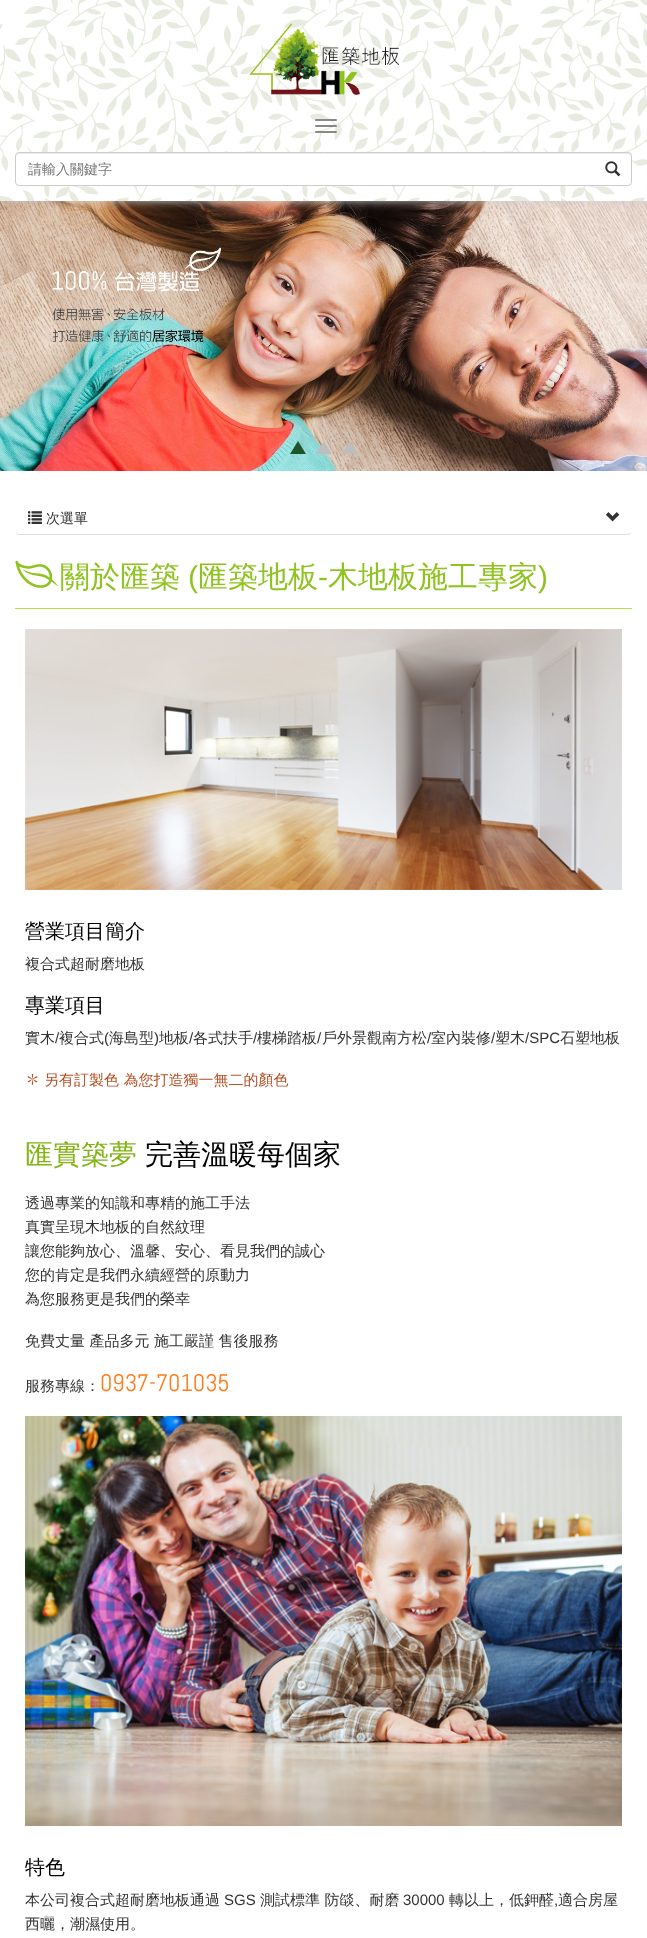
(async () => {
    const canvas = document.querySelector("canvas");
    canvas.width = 647;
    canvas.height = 1938;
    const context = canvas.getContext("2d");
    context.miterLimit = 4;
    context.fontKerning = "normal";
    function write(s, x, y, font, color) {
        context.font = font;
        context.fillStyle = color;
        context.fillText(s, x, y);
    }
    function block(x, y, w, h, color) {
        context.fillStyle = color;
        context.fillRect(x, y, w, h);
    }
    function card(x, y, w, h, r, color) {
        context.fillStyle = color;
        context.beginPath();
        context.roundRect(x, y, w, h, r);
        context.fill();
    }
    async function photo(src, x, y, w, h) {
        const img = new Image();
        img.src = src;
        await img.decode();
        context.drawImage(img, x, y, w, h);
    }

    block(0, 0, 647, 1938, "rgb(255, 255, 255)");
    await photo("media/4.png", 0, 201, 647, 270);
    context.fillStyle = "rgb(208, 208, 208)";
    context.filter = "blur(5px)";
    context.beginPath();
    context.rect(0, 0, 647, 201);
    context.fill();
    context.filter = "none";
    await photo("media/1.png", 0, 0, 647, 201);
    await photo("media/2.png", 249, 23, 150, 72);
    card(315, 119, 22, 2, 1, "rgb(136, 136, 136)");
    card(315, 125, 22, 2, 1, "rgb(136, 136, 136)");
    card(315, 131, 22, 2, 1, "rgb(136, 136, 136)");
    card(15, 152, 617, 34, 4, "rgb(255, 255, 255)");
    context.fillStyle = "rgb(236, 236, 236)";
    context.beginPath();
    context.moveTo(19, 154);
    context.lineTo(628, 154);
    context.bezierCurveTo(630, 154, 631, 155, 631, 157);
    context.lineTo(631, 156);
    context.bezierCurveTo(631, 154, 630, 153, 628, 153);
    context.lineTo(19, 153);
    context.bezierCurveTo(17, 153, 16, 154, 16, 156);
    context.lineTo(16, 157);
    context.bezierCurveTo(16, 155, 17, 154, 19, 154);
    context.closePath();
    context.fill();
    context.beginPath();
    context.roundRect(15.5, 152.5, 616, 33, 3.5);
    context.strokeStyle = "rgb(204, 204, 204)";
    context.stroke();
    write("請輸入關鍵字", 28, 174, "500 14px WenQuanYi Zen Hei", "rgb(119, 119, 119)");
    await photo("media/3.png", 605, 161, 16, 16);
    await photo("media/5.png", 290, 441, 16, 13);
    await photo("media/6.png", 316, 441, 16, 13);
    await photo("media/7.png", 342, 441, 16, 13);
    context.beginPath();
    context.moveTo(630.5, 533.5);
    context.lineTo(628, 534.5);
    context.lineTo(19, 534.5);
    context.lineTo(16.5, 533.5);
    context.strokeStyle = "rgb(221, 221, 221)";
    context.stroke();
    await photo("media/8.png", 28, 511, 14, 13);
    write("次選單", 46, 523, "500 14px WenQuanYi Zen Hei", "rgb(51, 51, 51)");
    await photo("media/9.png", 605, 512, 15, 10);
    await photo("media/10.png", 15, 560, 43, 28);
    block(15, 608, 617, 1, "rgb(178, 228, 72)");
    write("關於匯築", 60, 587, "500 30px WenQuanYi Zen Hei", "rgb(143, 195, 32)");
    write("(", 188, 587, "30px Liberation Sans", "rgb(143, 195, 32)");
    write("匯築地板", 198, 587, "500 30px WenQuanYi Zen Hei", "rgb(143, 195, 32)");
    write("-", 318, 587, "30px Liberation Sans", "rgb(143, 195, 32)");
    write("木地板施工專家", 328, 587, "500 30px WenQuanYi Zen Hei", "rgb(143, 195, 32)");
    write(")", 538, 587, "30px Liberation Sans", "rgb(143, 195, 32)");
    await photo("media/11.png", 25, 629, 597, 261);
    write("營業項目簡介", 25, 938, "500 20px WenQuanYi Zen Hei", "rgb(0, 0, 0)");
    write("複合式超耐磨地板", 25, 969, "500 15px WenQuanYi Zen Hei", "rgb(51, 51, 51)");
    write("專業項目", 25, 1012, "500 20px WenQuanYi Zen Hei", "rgb(0, 0, 0)");
    write("實木", 25, 1043, "500 15px WenQuanYi Zen Hei", "rgb(51, 51, 51)");
    write("/", 55, 1043, "15px Liberation Sans", "rgb(51, 51, 51)");
    write("複合式", 59, 1043, "500 15px WenQuanYi Zen Hei", "rgb(51, 51, 51)");
    write("(", 104, 1043, "15px Liberation Sans", "rgb(51, 51, 51)");
    write("海島型", 109, 1043, "500 15px WenQuanYi Zen Hei", "rgb(51, 51, 51)");
    write(")", 154, 1043, "15px Liberation Sans", "rgb(51, 51, 51)");
    write("地板", 159, 1043, "500 15px WenQuanYi Zen Hei", "rgb(51, 51, 51)");
    write("/", 189, 1043, "15px Liberation Sans", "rgb(51, 51, 51)");
    write("各式扶手", 193, 1043, "500 15px WenQuanYi Zen Hei", "rgb(51, 51, 51)");
    write("/", 253, 1043, "15px Liberation Sans", "rgb(51, 51, 51)");
    write("樓梯踏板", 257, 1043, "500 15px WenQuanYi Zen Hei", "rgb(51, 51, 51)");
    write("/", 317, 1043, "15px Liberation Sans", "rgb(51, 51, 51)");
    write("戶外景觀南方松", 322, 1043, "500 15px WenQuanYi Zen Hei", "rgb(51, 51, 51)");
    write("/", 427, 1043, "15px Liberation Sans", "rgb(51, 51, 51)");
    write("室內裝修", 431, 1043, "500 15px WenQuanYi Zen Hei", "rgb(51, 51, 51)");
    write("/", 491, 1043, "15px Liberation Sans", "rgb(51, 51, 51)");
    write("塑木", 495, 1043, "500 15px WenQuanYi Zen Hei", "rgb(51, 51, 51)");
    write("/SPC", 525, 1043, "15px Liberation Sans", "rgb(51, 51, 51)");
    write("石塑地板", 560, 1043, "500 15px WenQuanYi Zen Hei", "rgb(51, 51, 51)");
    write("✽", 25, 1085, "15px Noto Sans CJK TC", "rgb(181, 78, 35)");
    write("另有訂製色 為您打造獨一無二的顏色", 44, 1085, "500 15px WenQuanYi Zen Hei", "rgb(181, 78, 35)");
    write("匯實築夢", 25, 1164, "500 28px WenQuanYi Zen Hei", "rgb(129, 180, 20)");
    write("完善溫暖每個家", 145, 1164, "500 28px WenQuanYi Zen Hei", "rgb(0, 0, 0)");
    write("透過專業的知識和專精的施工手法", 25, 1208, "500 15px WenQuanYi Zen Hei", "rgb(51, 51, 51)");
    write("真實呈現木地板的自然紋理", 25, 1232, "500 15px WenQuanYi Zen Hei", "rgb(51, 51, 51)");
    write("讓您能夠放心、溫馨、安心、看見我們的誠心", 25, 1256, "500 15px WenQuanYi Zen Hei", "rgb(51, 51, 51)");
    write("您的肯定是我們永續經營的原動力", 25, 1280, "500 15px WenQuanYi Zen Hei", "rgb(51, 51, 51)");
    write("為您服務更是我們的榮幸", 25, 1304, "500 15px WenQuanYi Zen Hei", "rgb(51, 51, 51)");
    write("免費丈量 產品多元 施工嚴謹 售後服務", 25, 1346, "500 15px WenQuanYi Zen Hei", "rgb(51, 51, 51)");
    write("服務專線：", 25, 1391, "500 15px WenQuanYi Zen Hei", "rgb(51, 51, 51)");
    write("0937-701035", 100, 1391, "24px Abel", "rgb(255, 124, 27)");
    await photo("media/12.png", 25, 1416, 597, 410);
    write("特色", 25, 1874, "500 20px WenQuanYi Zen Hei", "rgb(0, 0, 0)");
    write("本公司複合式超耐磨地板通過", 25, 1905, "500 15px WenQuanYi Zen Hei", "rgb(51, 51, 51)");
    write("SGS", 224, 1905, "15px Liberation Sans", "rgb(51, 51, 51)");
    write("測試標準 防燄、耐磨", 260, 1905, "500 15px WenQuanYi Zen Hei", "rgb(51, 51, 51)");
    write("30000", 403, 1905, "15px Liberation Sans", "rgb(51, 51, 51)");
    write("轉以上，低鉀醛", 449, 1905, "500 15px WenQuanYi Zen Hei", "rgb(51, 51, 51)");
    write(",", 554, 1905, "15px Liberation Sans", "rgb(51, 51, 51)");
    write("適合房屋", 558, 1905, "500 15px WenQuanYi Zen Hei", "rgb(51, 51, 51)");
    write("西曬，潮濕使用。", 25, 1929, "500 15px WenQuanYi Zen Hei", "rgb(51, 51, 51)");
})();
